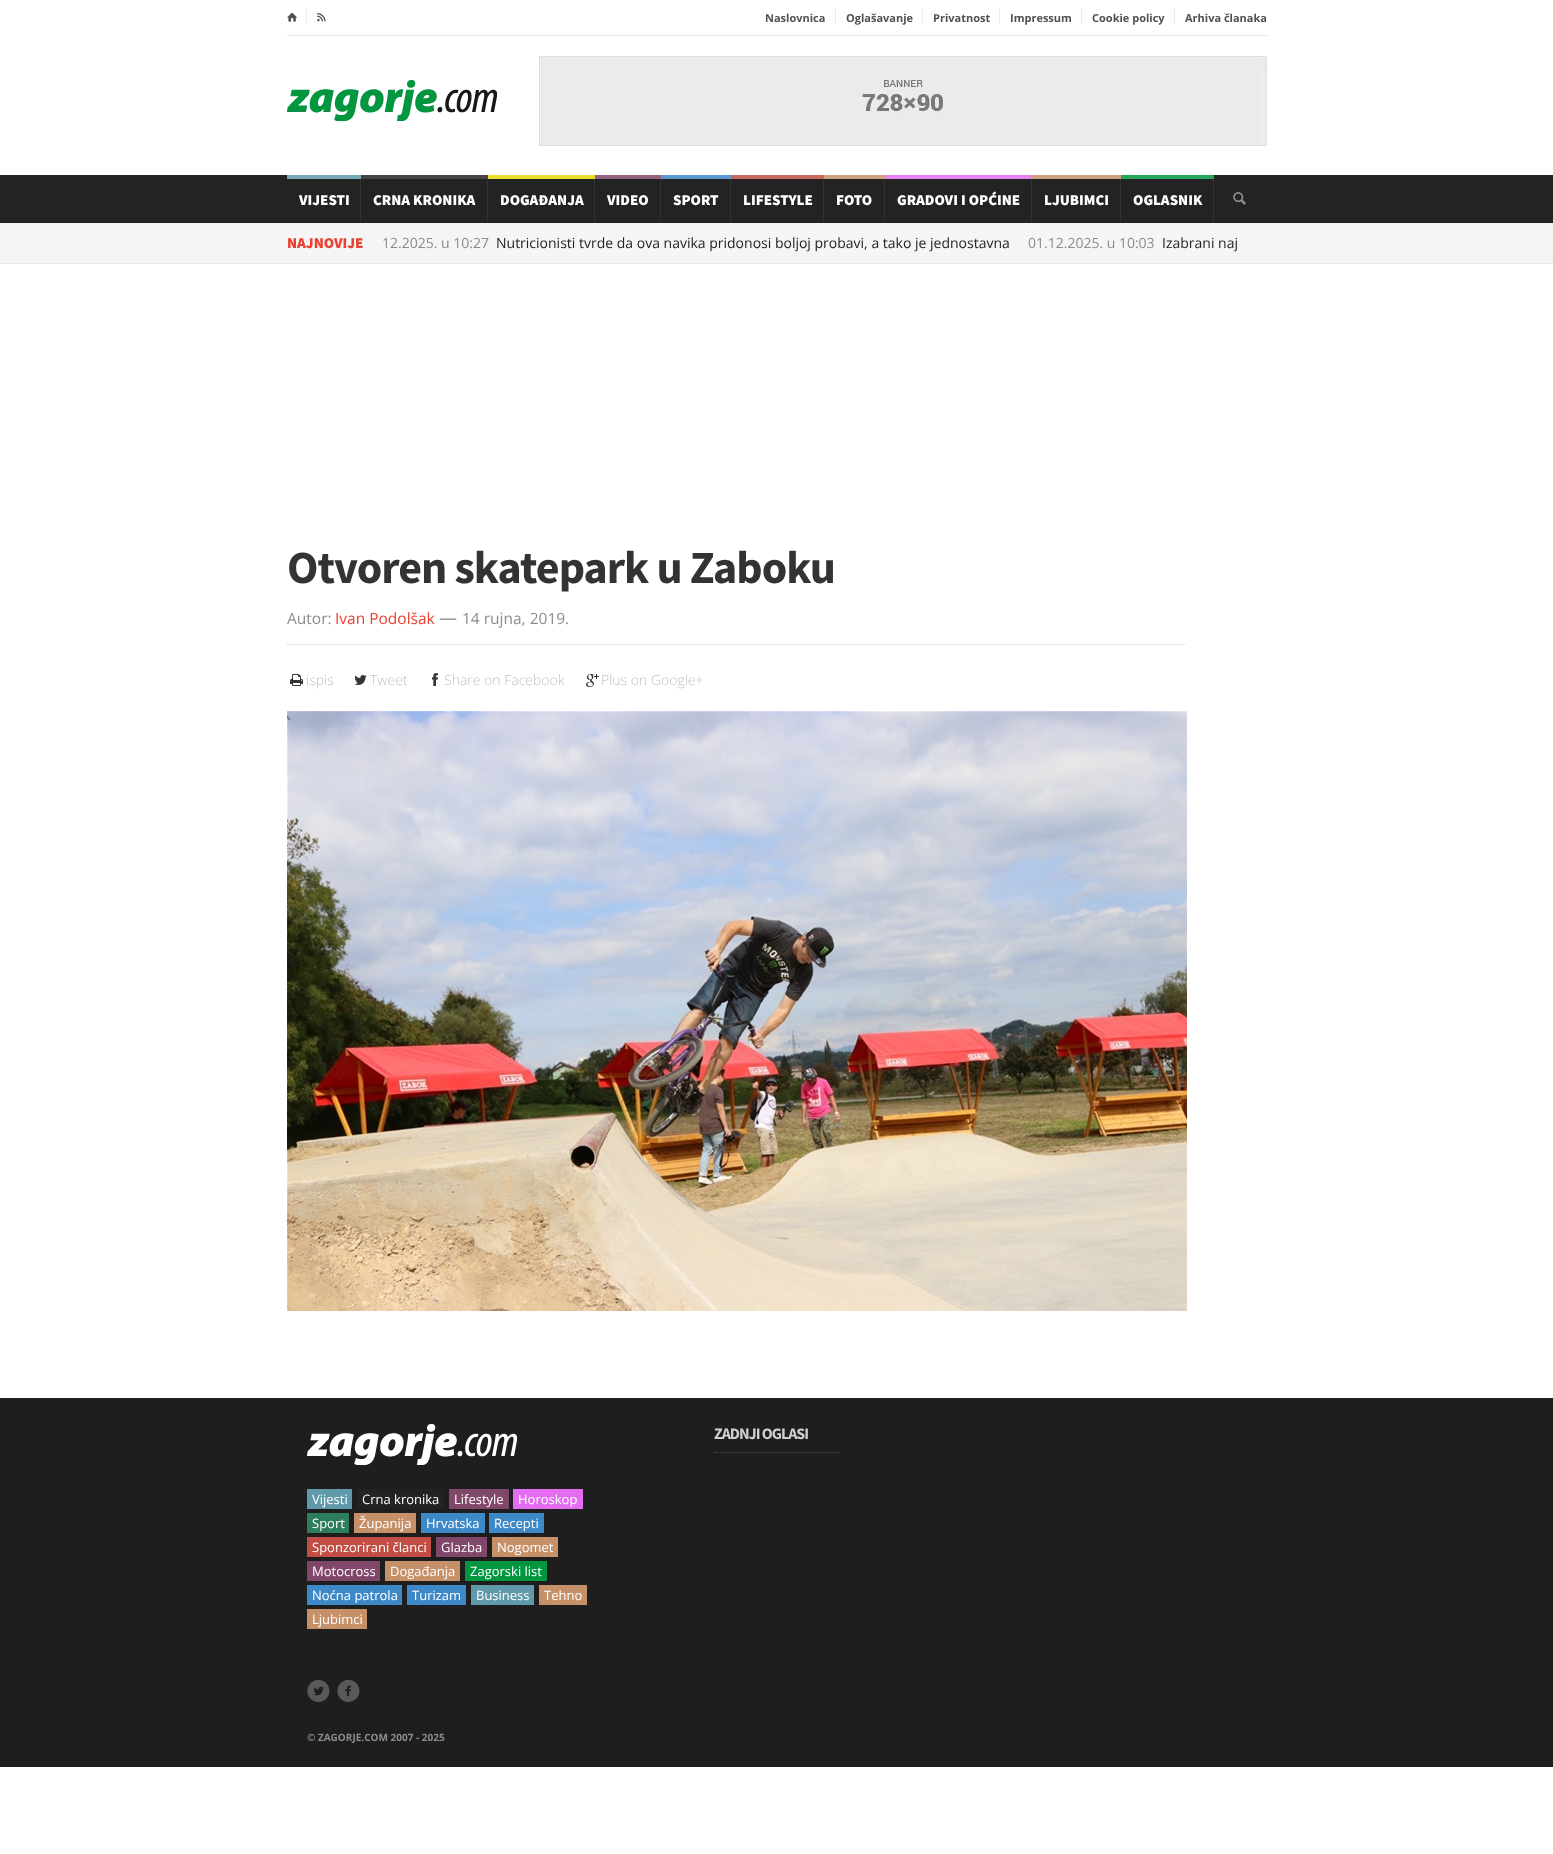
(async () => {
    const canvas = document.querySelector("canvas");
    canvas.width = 1553;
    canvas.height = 1854;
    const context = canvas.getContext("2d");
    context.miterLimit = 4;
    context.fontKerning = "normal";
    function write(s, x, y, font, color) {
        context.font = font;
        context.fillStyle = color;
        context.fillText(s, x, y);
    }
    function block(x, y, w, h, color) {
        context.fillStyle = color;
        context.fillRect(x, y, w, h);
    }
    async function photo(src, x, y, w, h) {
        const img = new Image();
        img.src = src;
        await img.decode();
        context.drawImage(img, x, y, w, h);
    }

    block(0, 0, 1553, 1854, "rgb(255, 255, 255)");
    block(287, 35, 980, 1, "rgb(227, 227, 227)");
    await photo("media/1.png", 287, 12, 10, 10);
    context.beginPath();
    context.moveTo(306.5, 9);
    context.lineTo(306.5, 25);
    context.strokeStyle = "rgb(217, 217, 217)";
    context.setLineDash([1, 1]);
    context.stroke();
    await photo("media/2.png", 317, 13, 9, 9);
    write("Naslovnica", 765, 22, "bold 11px Open Sans", "rgb(81, 81, 81)");
    context.beginPath();
    context.moveTo(835.5, 9);
    context.lineTo(835.5, 25);
    context.stroke();
    write("Oglašavanje", 846, 22, "bold 11px Open Sans", "rgb(81, 81, 81)");
    context.beginPath();
    context.moveTo(922.5, 9);
    context.lineTo(922.5, 25);
    context.stroke();
    write("Privatnost", 933, 22, "bold 11px Open Sans", "rgb(81, 81, 81)");
    context.beginPath();
    context.moveTo(999.5, 9);
    context.lineTo(999.5, 25);
    context.stroke();
    write("Impressum", 1010, 22, "bold 11px Open Sans", "rgb(81, 81, 81)");
    context.beginPath();
    context.moveTo(1081.5, 9);
    context.lineTo(1081.5, 25);
    context.stroke();
    write("Cookie policy", 1092, 22, "bold 11px Open Sans", "rgb(81, 81, 81)");
    context.beginPath();
    context.moveTo(1174.5, 9);
    context.lineTo(1174.5, 25);
    context.stroke();
    write("Arhiva članaka", 1185, 22, "bold 11px Open Sans", "rgb(81, 81, 81)");
    await photo("media/3.png", 287, 80, 210, 41);
    await photo("media/4.png", 539, 56, 728, 90);
    block(0, 175, 1553, 48, "rgb(35, 35, 35)");
    block(360, 179, 1, 43, "rgb(50, 50, 50)");
    block(287, 175, 74, 4, "rgb(120, 169, 183)");
    write("VIJESTI", 299, 205, "900 15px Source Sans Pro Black", "rgb(255, 255, 255)");
    block(487, 179, 1, 43, "rgb(50, 50, 50)");
    block(361, 175, 127, 4, "rgb(68, 68, 68)");
    write("CRNA KRONIKA", 373, 205, "900 15px Source Sans Pro Black", "rgb(255, 255, 255)");
    block(594, 179, 1, 43, "rgb(50, 50, 50)");
    block(488, 175, 107, 4, "rgb(235, 223, 43)");
    write("DOGAĐANJA", 500, 205, "900 15px Source Sans Pro Black", "rgb(255, 255, 255)");
    block(660, 179, 1, 43, "rgb(50, 50, 50)");
    block(595, 175, 66, 4, "rgb(147, 99, 129)");
    write("VIDEO", 607, 205, "900 15px Source Sans Pro Black", "rgb(255, 255, 255)");
    block(730, 179, 1, 43, "rgb(50, 50, 50)");
    block(661, 175, 70, 4, "rgb(90, 154, 207)");
    write("SPORT", 673, 205, "900 15px Source Sans Pro Black", "rgb(255, 255, 255)");
    block(823, 179, 1, 43, "rgb(50, 50, 50)");
    block(731, 175, 93, 4, "rgb(202, 104, 96)");
    write("LIFESTYLE", 743, 205, "900 15px Source Sans Pro Black", "rgb(255, 255, 255)");
    block(884, 179, 1, 43, "rgb(50, 50, 50)");
    block(824, 175, 61, 4, "rgb(207, 161, 128)");
    write("FOTO", 836, 205, "900 15px Source Sans Pro Black", "rgb(255, 255, 255)");
    block(1031, 179, 1, 43, "rgb(50, 50, 50)");
    block(885, 175, 147, 4, "rgb(231, 130, 242)");
    write("GRADOVI I OPĆINE", 897, 205, "900 15px Source Sans Pro Black", "rgb(255, 255, 255)");
    block(1120, 179, 1, 43, "rgb(50, 50, 50)");
    block(1032, 175, 89, 4, "rgb(207, 161, 128)");
    write("LJUBIMCI", 1044, 205, "900 15px Source Sans Pro Black", "rgb(255, 255, 255)");
    block(1213, 179, 1, 43, "rgb(50, 50, 50)");
    block(1121, 175, 93, 4, "rgb(38, 166, 93)");
    write("OGLASNIK", 1133, 205, "900 15px Source Sans Pro Black", "rgb(255, 255, 255)");
    await photo("media/5.png", 1233, 192, 13, 13);
    block(0, 223, 1553, 41, "rgb(245, 245, 245)");
    context.beginPath();
    context.moveTo(0, 263.5);
    context.lineTo(1553, 263.5);
    context.strokeStyle = "rgb(220, 220, 220)";
    context.stroke();
    write("NAJNOVIJE", 287, 248, "900 15px Source Sans Pro Black", "rgb(235, 63, 49)");
    write("12.2025. u 10:27", 382, 248, "14px Open Sans", "rgb(140, 140, 140)");
    write("Nutricionisti tvrde da ova navika pridonosi boljoj probavi, a tako je jednostavna", 496, 248, "14px Open Sans", "rgb(35, 35, 35)");
    write("01.12.2025. u 10:03", 1028, 248, "14px Open Sans", "rgb(140, 140, 140)");
    write("Izabrani naj", 1162, 248, "14px Open Sans", "rgb(35, 35, 35)");
    context.letterSpacing = "-1px";
    write("Otvoren skatepark u Zaboku", 287, 583, "bold 46px Source Sans Pro", "rgb(51, 51, 51)");
    context.beginPath();
    context.moveTo(287, 644.5);
    context.lineTo(1187, 644.5);
    context.strokeStyle = "rgb(217, 217, 217)";
    context.stroke();
    context.letterSpacing = "0px";
    write("Autor:", 287, 624, "15.5px Open Sans", "rgb(140, 140, 140)");
    write("Ivan Podolšak", 335, 624, "15.5px Open Sans", "rgb(235, 63, 49)");
    write("—", 439, 624, "18px Open Sans", "rgb(140, 140, 140)");
    write("14 rujna, 2019.", 462, 624, "15.5px Open Sans", "rgb(140, 140, 140)");
    await photo("media/6.png", 290, 674, 13, 12);
    write("ispis", 306, 685, "300 14px Open Sans", "rgb(194, 194, 194)");
    await photo("media/7.png", 354, 675, 13, 10);
    write("Tweet", 370, 685, "300 14px Open Sans", "rgb(194, 194, 194)");
    await photo("media/8.png", 432, 673, 6, 13);
    write("Share on Facebook", 444, 685, "300 14px Open Sans", "rgb(194, 194, 194)");
    await photo("media/9.png", 586, 674, 13, 13);
    write("Plus on Google+", 601, 685, "300 14px Open Sans", "rgb(194, 194, 194)");
    await photo("media/10.png", 287, 711, 900, 600);
    block(0, 1398, 1553, 369, "rgb(30, 30, 30)");
    context.beginPath();
    context.moveTo(714, 1452.5);
    context.lineTo(839, 1452.5);
    context.strokeStyle = "rgb(80, 80, 80)";
    context.stroke();
    context.letterSpacing = "-1px";
    write("ZADNJI OGLASI", 714, 1439, "bold 16px Source Sans Pro", "rgb(207, 207, 207)");
    await photo("media/11.png", 307, 1424, 210, 41);
    block(307, 1489, 45, 20, "rgb(96, 154, 170)");
    context.letterSpacing = "0px";
    write("Vijesti", 312, 1504, "13px Open Sans", "rgb(255, 255, 255)");
    block(357, 1489, 87, 20, "rgb(35, 35, 35)");
    write("Crna kronika", 362, 1504, "13px Open Sans", "rgb(255, 255, 255)");
    block(449, 1489, 60, 20, "rgb(128, 71, 107)");
    write("Lifestyle", 454, 1504, "13px Open Sans", "rgb(255, 255, 255)");
    block(513, 1489, 70, 20, "rgb(227, 108, 240)");
    write("Horoskop", 518, 1504, "13px Open Sans", "rgb(255, 255, 255)");
    block(307, 1513, 42, 20, "rgb(45, 126, 92)");
    write("Sport", 312, 1528, "13px Open Sans", "rgb(255, 255, 255)");
    block(354, 1513, 62, 20, "rgb(198, 144, 105)");
    write("Županija", 359, 1528, "13px Open Sans", "rgb(255, 255, 255)");
    block(421, 1513, 64, 20, "rgb(61, 136, 199)");
    write("Hrvatska", 426, 1528, "13px Open Sans", "rgb(255, 255, 255)");
    block(489, 1513, 55, 20, "rgb(61, 136, 199)");
    write("Recepti", 494, 1528, "13px Open Sans", "rgb(255, 255, 255)");
    block(307, 1537, 124, 20, "rgb(193, 77, 68)");
    write("Sponzorirani članci", 312, 1552, "13px Open Sans", "rgb(255, 255, 255)");
    block(436, 1537, 51, 20, "rgb(128, 71, 107)");
    write("Glazba", 441, 1552, "13px Open Sans", "rgb(255, 255, 255)");
    block(492, 1537, 66, 20, "rgb(198, 144, 105)");
    write("Nogomet", 497, 1552, "13px Open Sans", "rgb(255, 255, 255)");
    block(307, 1561, 73, 20, "rgb(128, 71, 107)");
    write("Motocross", 312, 1576, "13px Open Sans", "rgb(255, 255, 255)");
    block(385, 1561, 75, 20, "rgb(198, 144, 105)");
    write("Događanja", 390, 1576, "13px Open Sans", "rgb(255, 255, 255)");
    block(465, 1561, 82, 20, "rgb(0, 150, 64)");
    write("Zagorski list", 470, 1576, "13px Open Sans", "rgb(255, 255, 255)");
    block(307, 1585, 95, 20, "rgb(61, 136, 199)");
    write("Noćna patrola", 312, 1600, "13px Open Sans", "rgb(255, 255, 255)");
    block(407, 1585, 59, 20, "rgb(61, 136, 199)");
    write("Turizam", 412, 1600, "13px Open Sans", "rgb(255, 255, 255)");
    block(471, 1585, 63, 20, "rgb(96, 154, 170)");
    write("Business", 476, 1600, "13px Open Sans", "rgb(255, 255, 255)");
    block(539, 1585, 48, 20, "rgb(198, 144, 105)");
    write("Tehno", 544, 1600, "13px Open Sans", "rgb(255, 255, 255)");
    block(307, 1609, 60, 20, "rgb(198, 144, 105)");
    write("Ljubimci", 312, 1624, "13px Open Sans", "rgb(255, 255, 255)");
    await photo("media/12.png", 307, 1679, 23, 23);
    await photo("media/13.png", 337, 1679, 23, 23);
    write("© ZAGORJE.COM 2007 - 2025", 307, 1741, "bold 10px Open Sans", "rgb(140, 140, 140)");
})();
